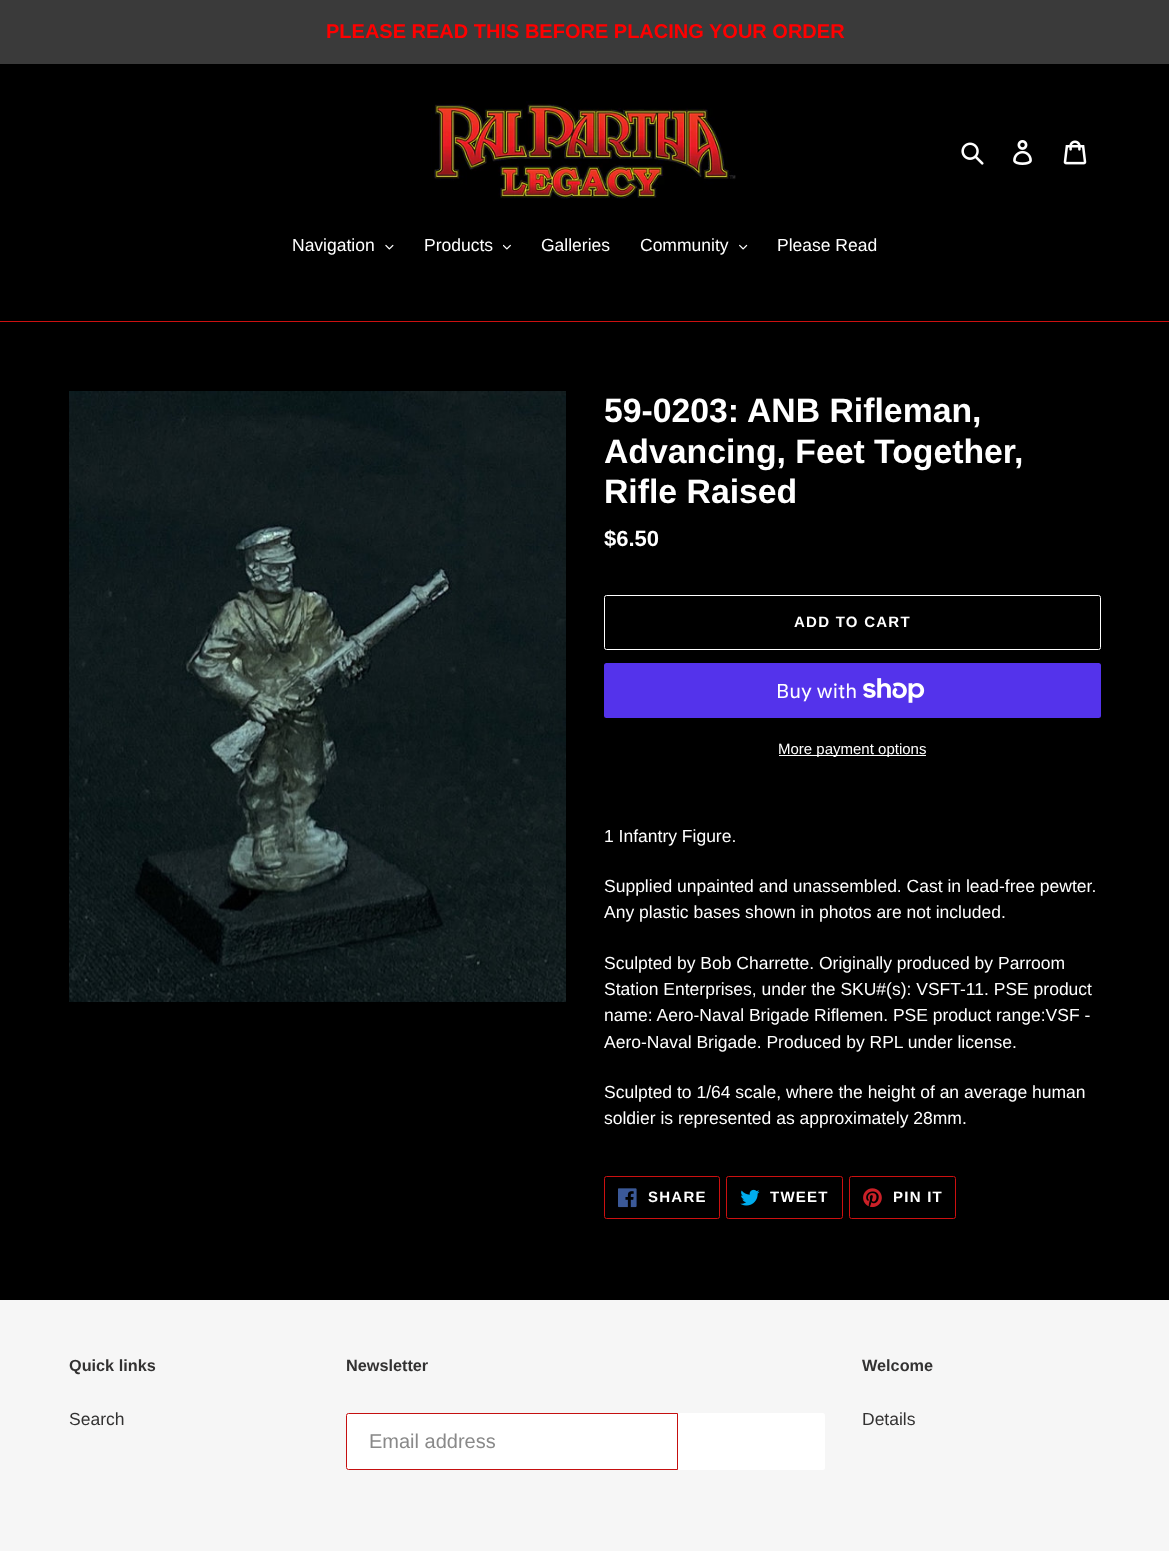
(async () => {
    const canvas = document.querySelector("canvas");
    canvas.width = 1169;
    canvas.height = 1551;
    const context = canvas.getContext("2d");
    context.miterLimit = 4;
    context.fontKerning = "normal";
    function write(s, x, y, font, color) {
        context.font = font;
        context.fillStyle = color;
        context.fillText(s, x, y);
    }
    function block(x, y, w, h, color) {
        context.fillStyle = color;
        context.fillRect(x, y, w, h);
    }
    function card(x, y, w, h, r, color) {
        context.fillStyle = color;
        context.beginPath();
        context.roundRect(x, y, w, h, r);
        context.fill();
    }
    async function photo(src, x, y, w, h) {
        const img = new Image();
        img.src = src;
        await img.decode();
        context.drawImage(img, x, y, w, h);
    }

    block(0, 0, 1169, 1551, "rgb(0, 0, 0)");
    block(0, 0, 1169, 64, "rgb(58, 58, 58)");
    write("PLEASE READ THIS BEFORE PLACING YOUR ORDER", 326, 38, "bold 20px Liberation Sans", "rgb(255, 0, 0)");
    await photo("media/1.png", 431, 101, 305, 98);
    await photo("media/2.png", 961, 142, 23, 23);
    await photo("media/3.png", 1013, 140, 19, 25);
    await photo("media/4.png", 1063, 140, 24, 25);
    block(0, 321, 1169, 1, "rgb(204, 16, 16)");
    write("Navigation", 292, 251, "17.5px Liberation Sans", "rgb(255, 255, 255)");
    await photo("media/5.png", 385, 244, 9, 6);
    write("Products", 424, 251, "17.5px Liberation Sans", "rgb(255, 255, 255)");
    await photo("media/6.png", 503, 244, 8, 6);
    write("Galleries", 541, 251, "17.5px Liberation Sans", "rgb(255, 255, 255)");
    write("Community", 640, 251, "17.5px Liberation Sans", "rgb(255, 255, 255)");
    await photo("media/7.png", 739, 244, 9, 6);
    write("Please Read", 777, 251, "17.5px Liberation Sans", "rgb(255, 255, 255)");
    await photo("media/8.png", 69, 391, 497, 611);
    write("59-0203:", 604, 422, "bold 33.75px Liberation Sans", "rgb(255, 255, 255)");
    write("ANB Rifleman,", 747, 422, "bold 33.75px Liberation Sans", "rgb(255, 255, 255)");
    write("Advancing, Feet Together,", 604, 463, "bold 33.75px Liberation Sans", "rgb(255, 255, 255)");
    write("Rifle Raised", 604, 503, "bold 33.75px Liberation Sans", "rgb(255, 255, 255)");
    write("$6.50", 604, 546, "bold 22px Liberation Sans", "rgb(255, 255, 255)");
    context.beginPath();
    context.roundRect(604.5, 595.5, 496, 54, 2);
    context.strokeStyle = "rgb(255, 255, 255)";
    context.stroke();
    context.letterSpacing = "1.25px";
    write("ADD TO CART", 794, 627, "bold 15px Liberation Sans", "rgb(255, 255, 255)");
    card(604, 663, 497, 55, 2.5, "rgb(84, 51, 235)");
    context.letterSpacing = "0px";
    write("Buy with", 776, 698, "20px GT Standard", "rgb(255, 255, 255)");
    await photo("media/9.png", 863, 678, 62, 25);
    block(779, 755, 147, 1, "rgb(255, 255, 255)");
    write("More payment options", 778, 754, "15px Liberation Sans", "rgb(255, 255, 255)");
    write("1 Infantry Figure.", 604, 842, "17.5px Liberation Sans", "rgb(255, 255, 255)");
    write("Supplied unpainted and unassembled. Cast in lead-free pewter.", 604, 892, "17.5px Liberation Sans", "rgb(255, 255, 255)");
    write("Any plastic bases shown in photos are not included.", 604, 918, "17.5px Liberation Sans", "rgb(255, 255, 255)");
    write("Sculpted by Bob Charrette. Originally produced by Parroom", 604, 969, "17.5px Liberation Sans", "rgb(255, 255, 255)");
    write("Station Enterprises, under the SKU#(s): VSFT-11. PSE product", 604, 995, "17.5px Liberation Sans", "rgb(255, 255, 255)");
    write("name: Aero-Naval Brigade Riflemen. PSE product range:VSF -", 604, 1021, "17.5px Liberation Sans", "rgb(255, 255, 255)");
    write("Aero-Naval Brigade. Produced by RPL under license.", 604, 1048, "17.5px Liberation Sans", "rgb(255, 255, 255)");
    write("Sculpted to 1/64 scale, where the height of an average human", 604, 1098, "17.5px Liberation Sans", "rgb(255, 255, 255)");
    write("soldier is represented as approximately 28mm.", 604, 1124, "17.5px Liberation Sans", "rgb(255, 255, 255)");
    context.beginPath();
    context.roundRect(604.5, 1176.5, 115, 42, 2);
    context.strokeStyle = "rgb(204, 16, 16)";
    context.stroke();
    await photo("media/10.png", 618, 1188, 19, 20);
    context.letterSpacing = "1.25px";
    write("SHARE", 648, 1202, "bold 15px Liberation Sans", "rgb(255, 255, 255)");
    context.beginPath();
    context.roundRect(726.5, 1176.5, 116, 42, 2);
    context.stroke();
    await photo("media/11.png", 740, 1189, 20, 17);
    write("TWEET", 770, 1202, "bold 15px Liberation Sans", "rgb(255, 255, 255)");
    context.beginPath();
    context.roundRect(849.5, 1176.5, 106, 42, 2);
    context.stroke();
    await photo("media/12.png", 863, 1188, 19, 20);
    write("PIN IT", 893, 1202, "bold 15px Liberation Sans", "rgb(255, 255, 255)");
    block(0, 1300, 1169, 251, "rgb(246, 246, 246)");
    context.letterSpacing = "0px";
    write("Quick links", 69, 1371, "bold 16.25px Liberation Sans", "rgb(51, 50, 50)");
    write("Search", 69, 1425, "17.5px Liberation Sans", "rgb(51, 50, 50)");
    write("Newsletter", 346, 1371, "bold 16.25px Liberation Sans", "rgb(51, 50, 50)");
    context.fillStyle = "rgb(255, 255, 255)";
    context.beginPath();
    context.roundRect(346.5, 1413.5, 331, 56, [2, 0, 0, 2]);
    context.fill();
    context.strokeStyle = "rgb(197, 15, 15)";
    context.stroke();
    write("Email address", 369, 1448, "20px Liberation Sans", "rgb(137, 137, 137)");
    context.fillStyle = "rgb(255, 255, 255)";
    context.beginPath();
    context.roundRect(678, 1413, 147, 57, [0, 2.5, 2.5, 0]);
    context.fill();
    write("Welcome", 862, 1371, "bold 16.25px Liberation Sans", "rgb(51, 50, 50)");
    write("Details", 862, 1425, "17.5px Liberation Sans", "rgb(51, 50, 50)");
})();
